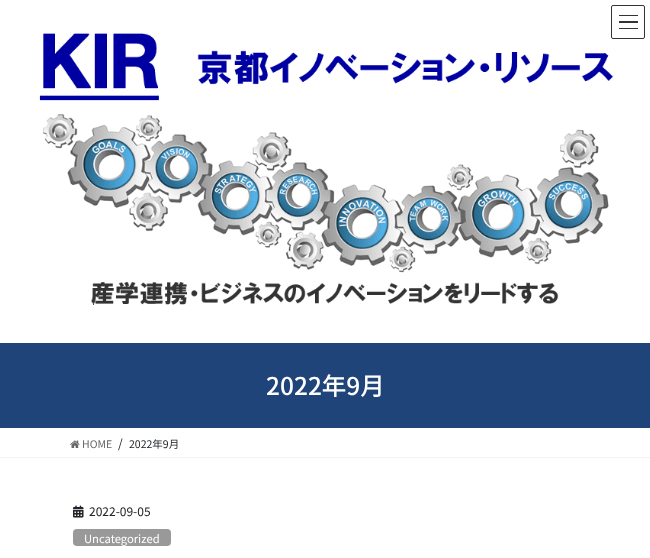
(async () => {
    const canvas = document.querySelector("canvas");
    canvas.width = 650;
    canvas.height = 558;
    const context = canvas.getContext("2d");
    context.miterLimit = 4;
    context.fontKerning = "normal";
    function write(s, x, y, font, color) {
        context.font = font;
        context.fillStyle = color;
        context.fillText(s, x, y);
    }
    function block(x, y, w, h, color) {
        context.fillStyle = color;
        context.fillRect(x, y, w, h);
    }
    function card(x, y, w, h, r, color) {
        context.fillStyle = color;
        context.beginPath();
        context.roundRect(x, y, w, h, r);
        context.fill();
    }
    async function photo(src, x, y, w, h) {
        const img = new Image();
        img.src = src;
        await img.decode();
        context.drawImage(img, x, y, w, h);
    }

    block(0, 0, 650, 558, "rgb(255, 255, 255)");
    block(619, 15, 19, 1, "rgb(51, 51, 51)");
    block(619, 21, 19, 2, "rgb(51, 51, 51)");
    block(619, 28, 19, 1, "rgb(51, 51, 51)");
    await photo("media/1.png", 39, 33, 575, 272);
    context.beginPath();
    context.roundRect(611.5, 5.5, 33, 33, 1.5);
    context.strokeStyle = "rgb(51, 51, 51)";
    context.stroke();
    block(0, 343, 650, 85, "rgb(31, 68, 122)");
    write("2022年9月", 266, 395, "500 24.5px Noto Sans JP", "rgb(255, 255, 255)");
    block(0, 457, 650, 1, "rgb(242, 242, 242)");
    await photo("media/2.png", 70, 440, 10, 8);
    write("HOME", 82, 448, "10.5px Noto Sans JP", "rgb(102, 102, 102)");
    write("/", 118, 448, "12px Noto Sans JP", "rgb(33, 37, 41)");
    write("2022年9月", 129, 448, "10.5px Noto Sans JP", "rgb(33, 37, 41)");
    await photo("media/3.png", 73, 505, 11, 13);
    write("2022-09-05", 89, 516, "12px Noto Sans JP", "rgb(33, 37, 41)");
    card(73, 529, 98, 17, 4, "rgb(153, 153, 153)");
    write("Uncategorized", 84, 543, "11.25px Noto Sans JP", "rgb(255, 255, 255)");
})();
